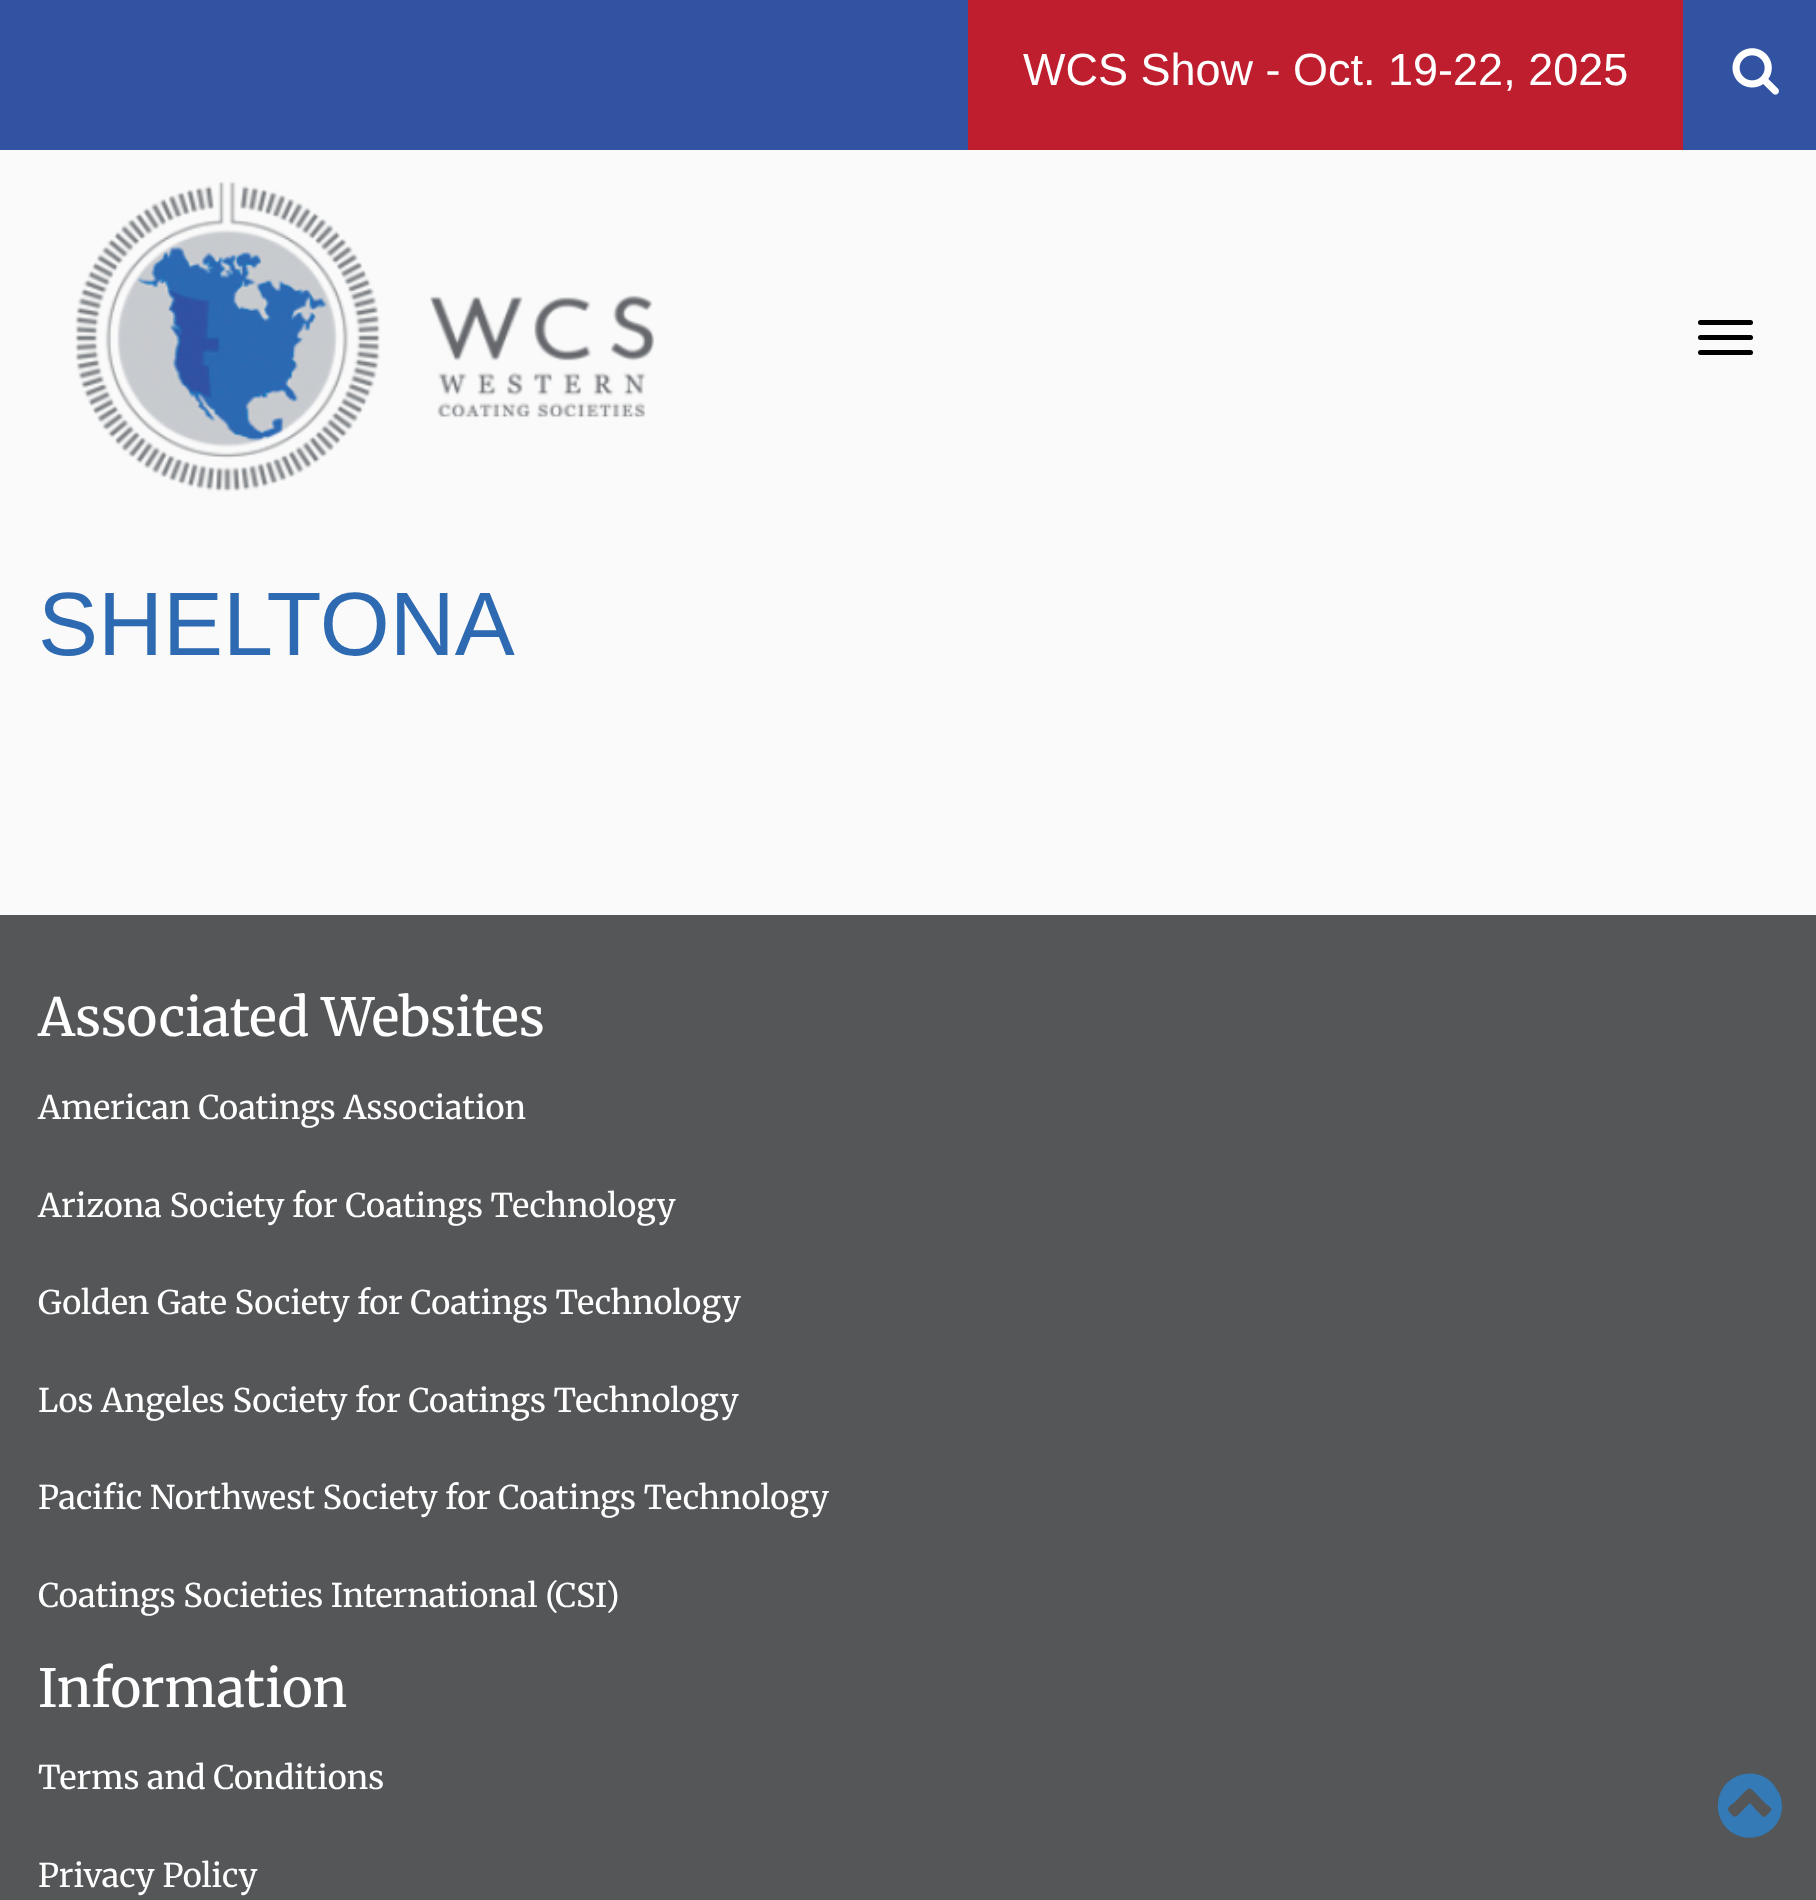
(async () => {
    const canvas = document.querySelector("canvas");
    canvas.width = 1816;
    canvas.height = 1900;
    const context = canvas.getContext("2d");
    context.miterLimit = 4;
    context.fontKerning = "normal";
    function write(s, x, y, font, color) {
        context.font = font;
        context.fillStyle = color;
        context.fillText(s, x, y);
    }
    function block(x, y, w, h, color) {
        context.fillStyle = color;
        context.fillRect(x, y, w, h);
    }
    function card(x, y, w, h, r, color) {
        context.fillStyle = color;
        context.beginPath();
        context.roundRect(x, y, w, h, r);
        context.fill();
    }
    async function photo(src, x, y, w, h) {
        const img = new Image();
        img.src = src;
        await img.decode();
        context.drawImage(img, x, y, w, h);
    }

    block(0, 0, 1816, 1900, "rgb(250, 250, 250)");
    block(0, 0, 1816, 150, "rgb(49, 83, 161)");
    block(968, 0, 715, 150, "rgb(190, 30, 45)");
    write("WCS Show - Oct. 19-22, 2025", 1023, 85, "45px Liberation Sans", "rgb(255, 255, 255)");
    await photo("media/1.png", 1732, 48, 47, 47);
    await photo("media/2.png", 75, 181, 580, 311);
    card(1698, 320, 55, 5, 2.5, "rgb(0, 0, 0)");
    card(1698, 335, 55, 5, 2.5, "rgb(0, 0, 0)");
    card(1698, 350, 55, 5, 2.5, "rgb(0, 0, 0)");
    write("SHELTONA", 38, 655, "90px Liberation Sans", "rgb(45, 106, 178)");
    block(0, 915, 1816, 985, "rgb(85, 86, 88)");
    write("Associated Websites", 38, 1036, "300 52.5px Merriweather", "rgb(255, 255, 255)");
    write("American Coatings Association", 38, 1119, "300 32.5px Merriweather", "rgb(255, 255, 255)");
    write("Arizona Society for Coatings Technology", 38, 1217, "300 32.5px Merriweather", "rgb(255, 255, 255)");
    write("Golden Gate Society for Coatings Technology", 38, 1314, "300 32.5px Merriweather", "rgb(255, 255, 255)");
    write("Los Angeles Society for Coatings Technology", 38, 1412, "300 32.5px Merriweather", "rgb(255, 255, 255)");
    write("Pacific Northwest Society for Coatings Technology", 38, 1509, "300 32.5px Merriweather", "rgb(255, 255, 255)");
    write("Coatings Societies International (CSI)", 38, 1607, "300 32.5px Merriweather", "rgb(255, 255, 255)");
    write("Information", 38, 1707, "300 52.5px Merriweather", "rgb(255, 255, 255)");
    write("Terms and Conditions", 38, 1789, "300 32.5px Merriweather", "rgb(255, 255, 255)");
    write("Privacy Policy", 38, 1887, "300 32.5px Merriweather", "rgb(255, 255, 255)");
    context.fillStyle = "rgb(51, 122, 183)";
    context.beginPath();
    context.moveTo(1766, 1816);
    context.bezierCurveTo(1774, 1808, 1773, 1810, 1764, 1802);
    context.bezierCurveTo(1746, 1784, 1753, 1784, 1735, 1802);
    context.bezierCurveTo(1731, 1805, 1725, 1808, 1730, 1813);
    context.bezierCurveTo(1734, 1817, 1734, 1818, 1739, 1814);
    context.lineTo(1750, 1803);
    context.lineTo(1758, 1812);
    context.bezierCurveTo(1760, 1813, 1763, 1819, 1766, 1816);
    context.closePath();
    context.moveTo(1777, 1790);
    context.bezierCurveTo(1781, 1795, 1782, 1801, 1782, 1808);
    context.bezierCurveTo(1780, 1839, 1738, 1849, 1722, 1822);
    context.bezierCurveTo(1719, 1816, 1717, 1810, 1718, 1804);
    context.bezierCurveTo(1720, 1772, 1762, 1762, 1777, 1790);
    context.closePath();
    context.fill();
})();
